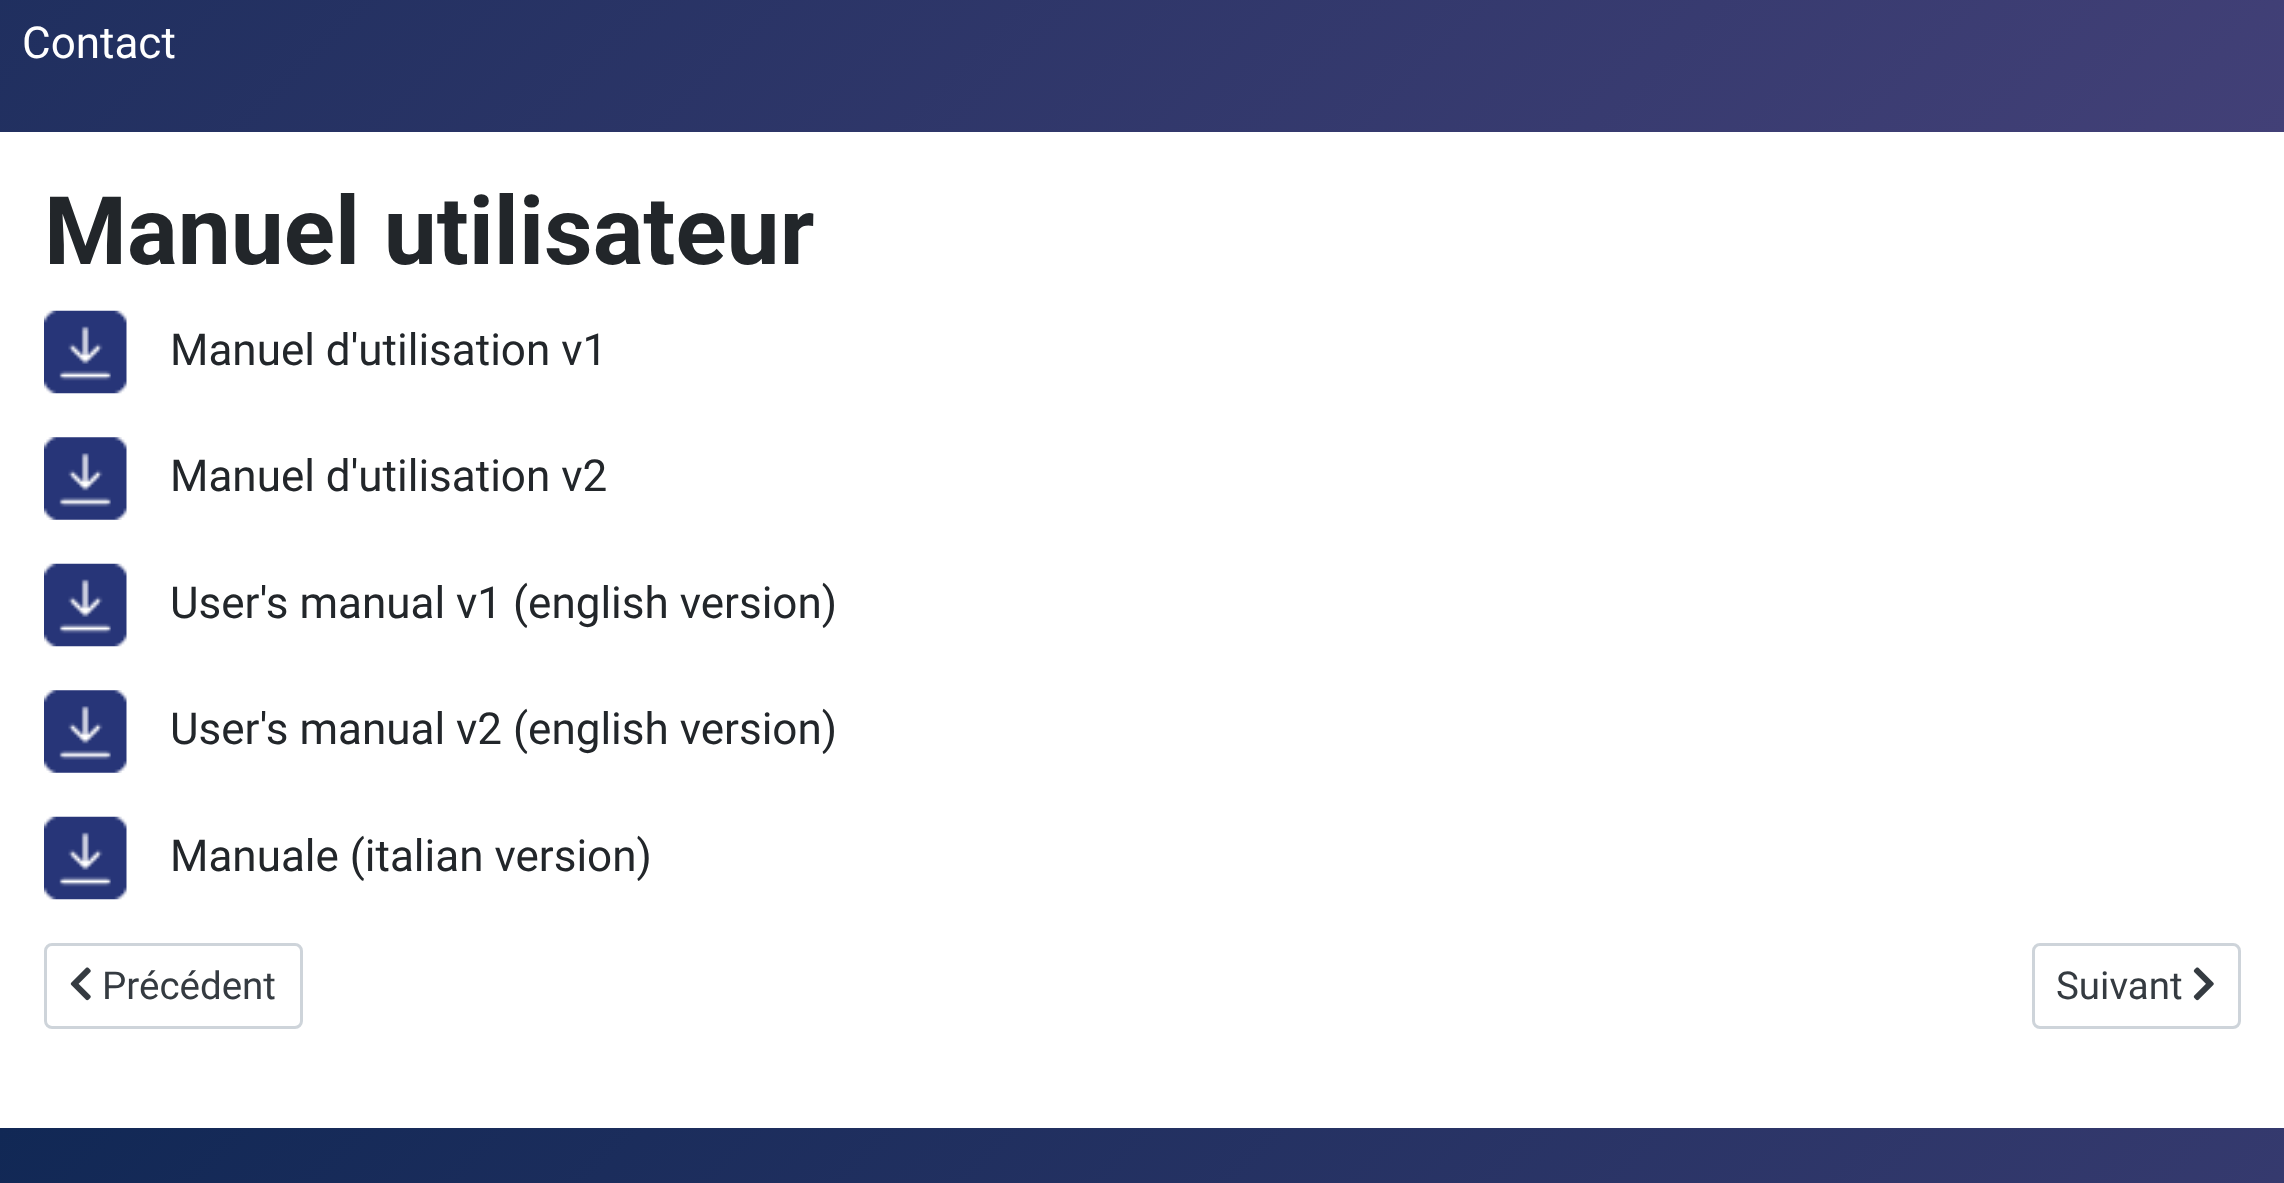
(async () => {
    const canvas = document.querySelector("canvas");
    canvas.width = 2284;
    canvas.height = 1183;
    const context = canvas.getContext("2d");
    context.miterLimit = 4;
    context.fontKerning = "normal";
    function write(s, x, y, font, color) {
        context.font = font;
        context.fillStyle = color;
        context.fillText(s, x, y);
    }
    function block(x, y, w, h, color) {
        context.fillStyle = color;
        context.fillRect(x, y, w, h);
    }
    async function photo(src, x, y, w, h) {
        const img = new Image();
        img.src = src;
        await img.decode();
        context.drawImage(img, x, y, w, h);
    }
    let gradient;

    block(0, 0, 2284, 1183, "rgb(255, 255, 255)");
    gradient = context.createLinearGradient(283, -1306, 2003, 415);
    gradient.addColorStop(0, "rgb(17, 40, 85)");
    gradient.addColorStop(1, "rgb(66, 64, 119)");
    context.fillStyle = gradient;
    context.fillRect(0, 0, 2284, 132);
    write("Contact", 22, 58, "44px Roboto", "rgb(255, 255, 255)");
    write("Manuel utilisateur", 44, 264, "bold 94.75px Roboto", "rgb(34, 38, 42)");
    await photo("media/1.png", 44, 310, 83, 84);
    write("Manuel d'utilisation v1", 170, 365, "44px Roboto", "rgb(34, 38, 42)");
    await photo("media/2.png", 44, 437, 83, 83);
    write("Manuel d'utilisation v2", 170, 491, "44px Roboto", "rgb(34, 38, 42)");
    await photo("media/1.png", 44, 563, 83, 84);
    write("User's manual v1 (english version)", 170, 618, "44px Roboto", "rgb(34, 38, 42)");
    await photo("media/2.png", 44, 690, 83, 83);
    write("User's manual v2 (english version)", 170, 744, "44px Roboto", "rgb(34, 38, 42)");
    await photo("media/1.png", 44, 816, 83, 84);
    write("Manuale (italian version)", 170, 871, "44px Roboto", "rgb(34, 38, 42)");
    context.beginPath();
    context.roundRect(45.5, 944.5, 256, 83, 6.5);
    context.strokeStyle = "rgb(206, 212, 218)";
    context.lineWidth = 3;
    context.stroke();
    await photo("media/3.png", 70, 967, 21, 34);
    write("Précédent", 102, 999, "38.5px Roboto", "rgb(53, 59, 65)");
    context.beginPath();
    context.roundRect(2033.5, 944.5, 206, 83, 6.5);
    context.stroke();
    write("Suivant", 2056, 999, "38.5px Roboto", "rgb(53, 59, 65)");
    await photo("media/4.png", 2193, 967, 21, 34);
    gradient = context.createLinearGradient(351, 776, 1934, 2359);
    gradient.addColorStop(0, "rgb(17, 40, 85)");
    gradient.addColorStop(1, "rgb(66, 64, 119)");
    context.fillStyle = gradient;
    context.fillRect(0, 1128, 2284, 55);
})();
